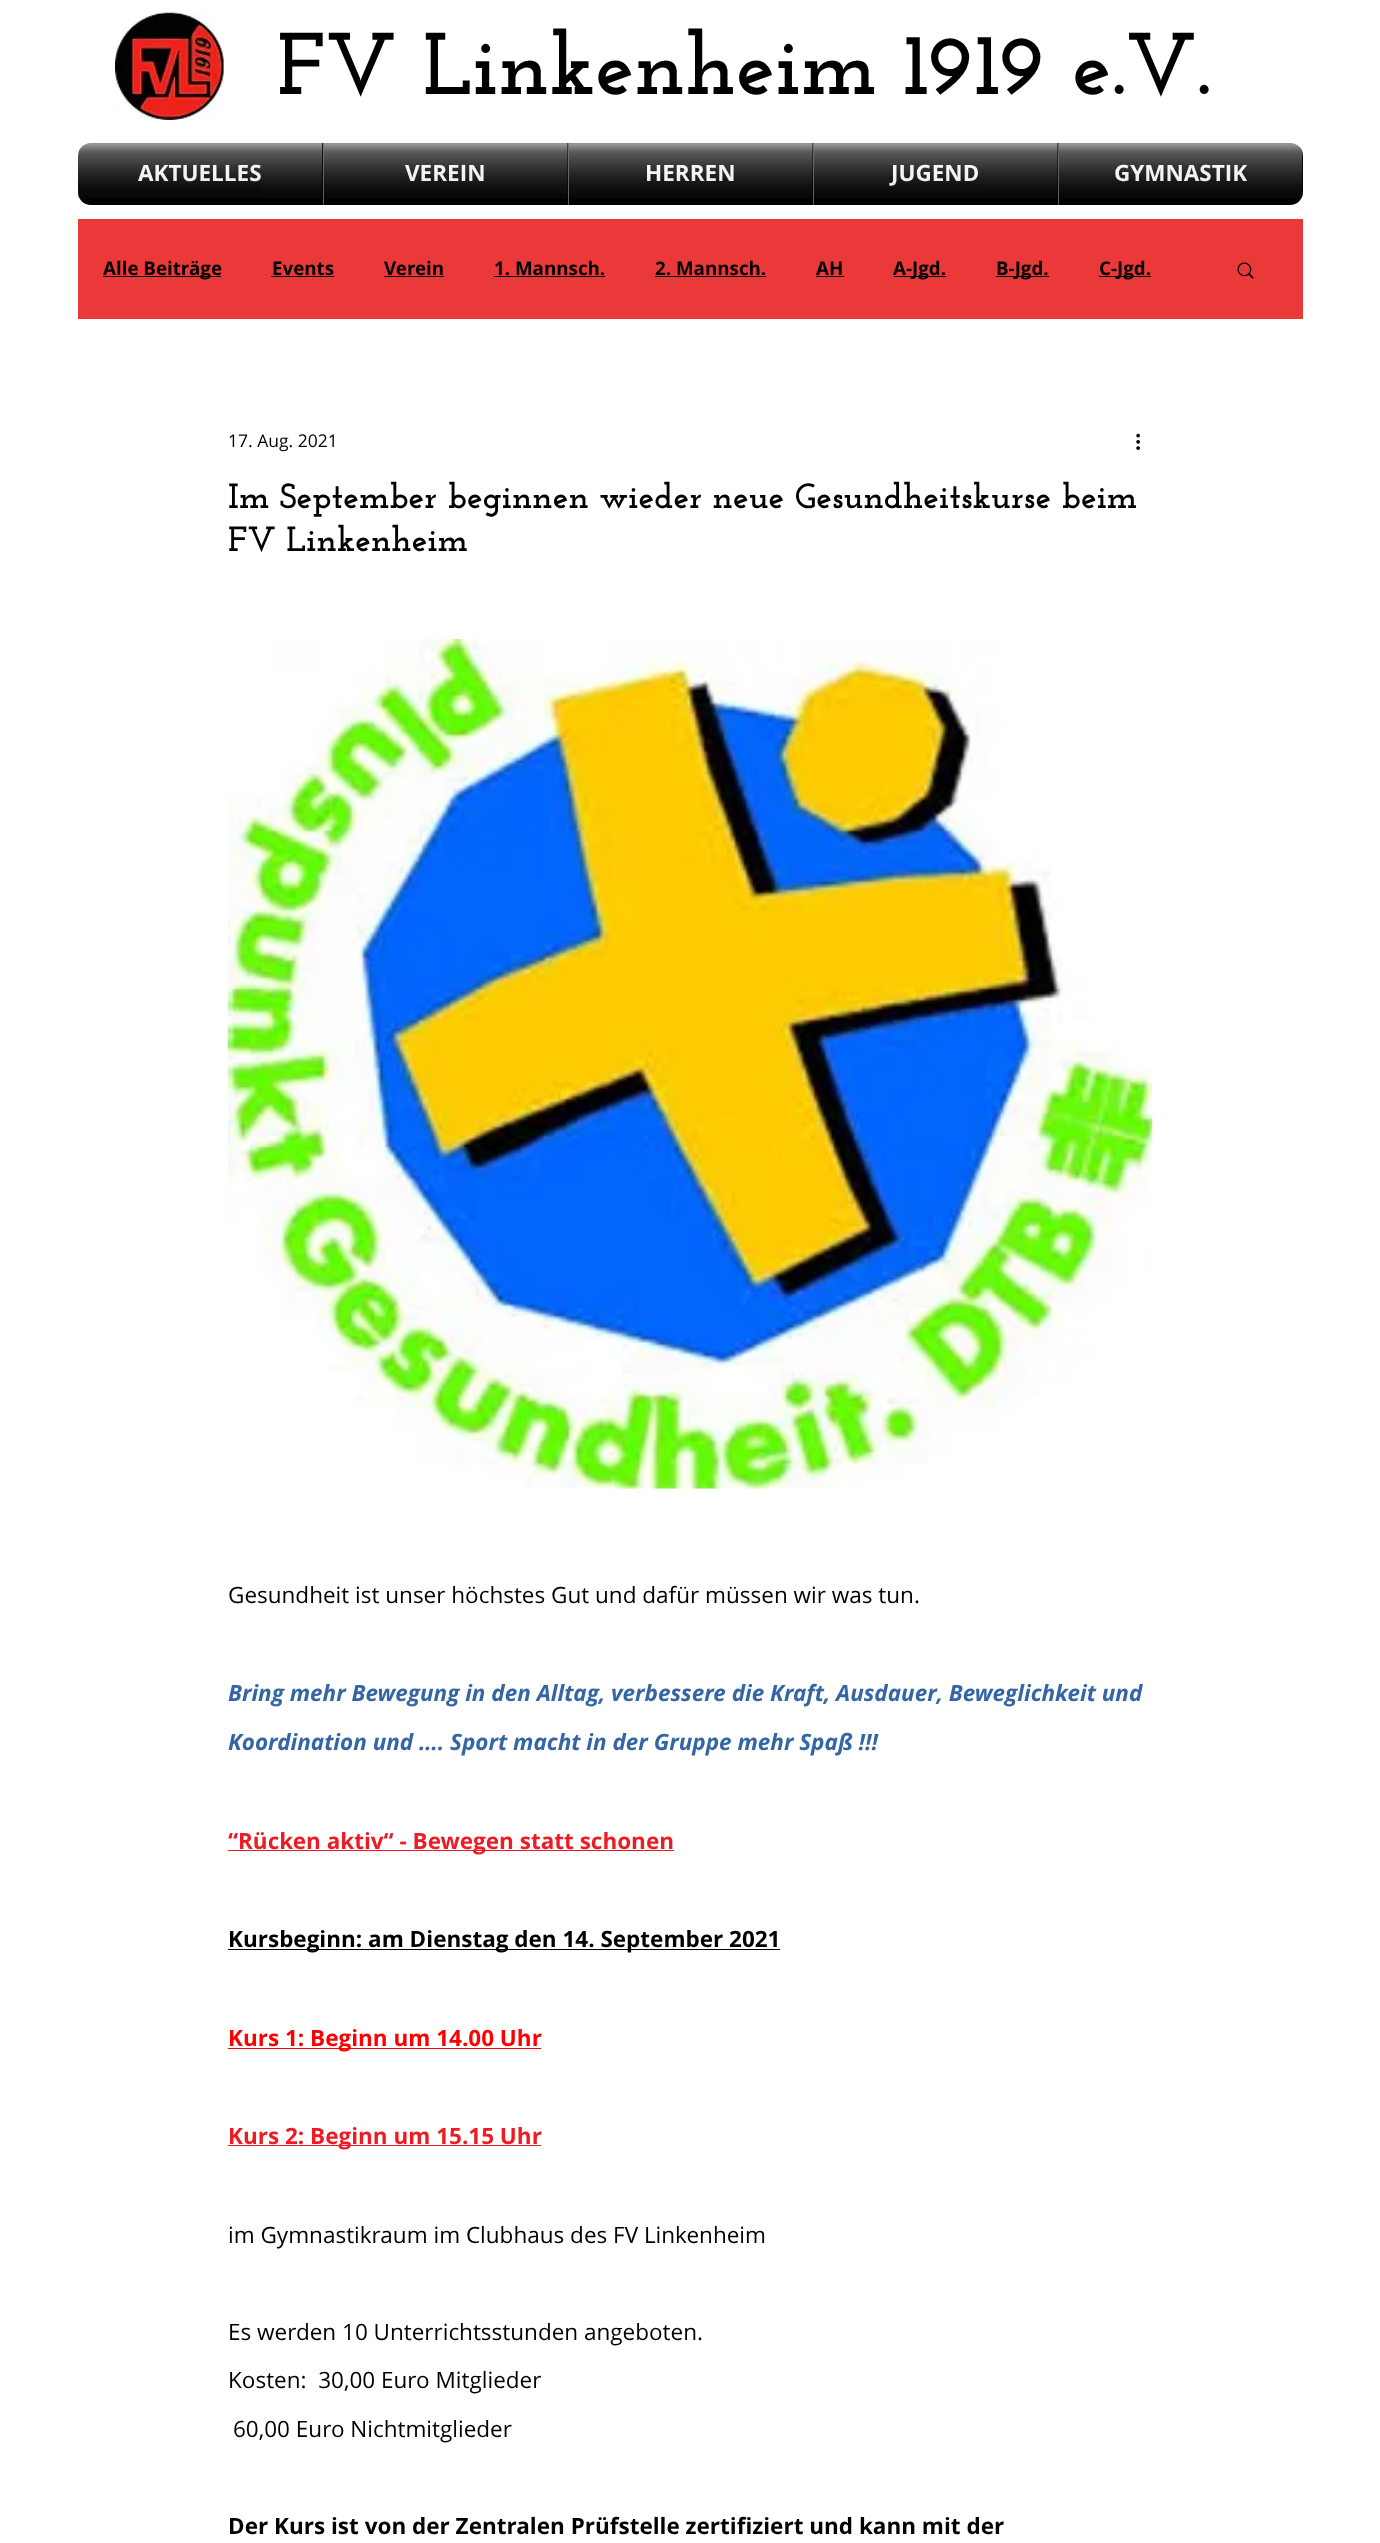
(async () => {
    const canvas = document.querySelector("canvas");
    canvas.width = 1380;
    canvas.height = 2543;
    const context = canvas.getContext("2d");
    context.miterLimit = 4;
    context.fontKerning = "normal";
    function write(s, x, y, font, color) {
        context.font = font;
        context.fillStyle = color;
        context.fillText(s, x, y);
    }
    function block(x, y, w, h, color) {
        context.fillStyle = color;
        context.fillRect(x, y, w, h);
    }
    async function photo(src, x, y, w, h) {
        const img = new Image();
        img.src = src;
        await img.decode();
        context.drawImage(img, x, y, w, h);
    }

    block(0, 0, 1380, 2543, "rgb(255, 255, 255)");
    await photo("media/1.png", 115, 12, 109, 108);
    write("FV Linkenheim 1919 e.V.", 277, 94, "bold 87.5px Josefin Slab", "rgb(0, 0, 0)");
    await photo("media/2.png", 78, 143, 1225, 56);
    await photo("media/3.png", 78, 193, 1215, 12);
    context.beginPath();
    context.roundRect(78, 143, 245, 62, [13, 0, 0, 13]);
    context.fill();
    write("AKTUELLES", 138, 181, "bold 22.5px Open Sans", "rgb(255, 255, 255)");
    await photo("media/4.png", 78, 143, 245, 56);
    await photo("media/5.png", 78, 165, 183, 40);
    block(324, 143, 244, 62, "rgb(0, 0, 0)");
    block(323, 143, 1, 62, "rgb(96, 96, 96)");
    write("VEREIN", 405, 181, "bold 22.5px Open Sans", "rgb(255, 255, 255)");
    await photo("media/6.png", 323, 143, 245, 56);
    await photo("media/7.png", 406, 165, 78, 16);
    block(569, 143, 244, 62, "rgb(0, 0, 0)");
    block(568, 143, 1, 62, "rgb(96, 96, 96)");
    write("HERREN", 645, 181, "bold 22.5px Open Sans", "rgb(255, 255, 255)");
    await photo("media/8.png", 568, 143, 245, 56);
    await photo("media/9.png", 647, 165, 87, 16);
    block(814, 143, 244, 62, "rgb(0, 0, 0)");
    block(813, 143, 1, 62, "rgb(96, 96, 96)");
    write("JUGEND", 891, 181, "bold 22.5px Open Sans", "rgb(255, 255, 255)");
    await photo("media/10.png", 813, 143, 245, 56);
    await photo("media/11.png", 889, 165, 90, 21);
    context.fillStyle = "rgb(0, 0, 0)";
    context.beginPath();
    context.roundRect(1058, 143, 245, 62, [0, 13, 13, 0]);
    context.fill();
    block(1058, 143, 1, 62, "rgb(96, 96, 96)");
    write("GYMNASTIK", 1114, 181, "bold 22.5px Open Sans", "rgb(255, 255, 255)");
    await photo("media/12.png", 1058, 143, 245, 56);
    await photo("media/13.png", 1115, 165, 132, 17);
    block(78, 219, 1225, 100, "rgb(235, 56, 56)");
    block(103, 276, 118, 1, "rgb(0, 0, 0)");
    write("Alle Beiträge", 103, 275, "bold 18.75px Open Sans", "rgb(0, 0, 0)");
    write("Events", 272, 275, "bold 18.75px Open Sans", "rgb(0, 0, 0)");
    block(271, 276, 63, 1, "rgb(0, 0, 0)");
    write("Verein", 384, 275, "bold 18.75px Open Sans", "rgb(0, 0, 0)");
    block(384, 276, 60, 1, "rgb(0, 0, 0)");
    write("1. Mannsch.", 494, 275, "bold 18.75px Open Sans", "rgb(0, 0, 0)");
    block(494, 276, 111, 1, "rgb(0, 0, 0)");
    write("2. Mannsch.", 655, 275, "bold 18.75px Open Sans", "rgb(0, 0, 0)");
    block(655, 276, 111, 1, "rgb(0, 0, 0)");
    write("AH", 816, 275, "bold 18.75px Open Sans", "rgb(0, 0, 0)");
    block(816, 276, 28, 1, "rgb(0, 0, 0)");
    block(894, 276, 52, 1, "rgb(0, 0, 0)");
    write("A-Jgd.", 893, 275, "bold 18.75px Open Sans", "rgb(0, 0, 0)");
    block(996, 276, 53, 1, "rgb(0, 0, 0)");
    write("B-Jgd.", 996, 275, "bold 18.75px Open Sans", "rgb(0, 0, 0)");
    block(1099, 276, 52, 1, "rgb(0, 0, 0)");
    write("C-Jgd.", 1099, 275, "bold 18.75px Open Sans", "rgb(0, 0, 0)");
    await photo("media/14.png", 1237, 262, 17, 17);
    write("17. Aug. 2021", 228, 447, "17.5px Open Sans", "rgb(0, 0, 0)");
    await photo("media/15.png", 1136, 433, 4, 17);
    write("Im September beginnen wieder neue Gesundheitskurse beim", 228, 508, "bold 35px Josefin Slab", "rgb(0, 0, 0)");
    write("FV Linkenheim", 228, 551, "bold 35px Josefin Slab", "rgb(0, 0, 0)");
    await photo("media/16.png", 227, 638, 926, 851);
    write("Gesundheit ist unser höchstes Gut und dafür müssen wir was tun.", 228, 1603, "22.5px Open Sans", "rgb(0, 0, 0)");
    write("Bring mehr Bewegung in den Alltag, verbessere die Kraft, Ausdauer, Beweglichkeit und", 228, 1701, "italic bold 22.5px Open Sans", "rgb(52, 101, 164)");
    write("Koordination und …. Sport macht in der Gruppe mehr Spaß !!!", 228, 1750, "italic bold 22.5px Open Sans", "rgb(52, 101, 164)");
    block(228, 1850, 446, 1, "rgb(237, 28, 36)");
    write("“Rücken aktiv“ - Bewegen statt schonen", 228, 1849, "bold 22.5px Open Sans", "rgb(237, 28, 36)");
    block(228, 1949, 552, 1, "rgb(0, 0, 0)");
    write("Kursbeginn: am Dienstag den 14. September 2021", 228, 1947, "bold 22.5px Open Sans", "rgb(0, 0, 0)");
    block(228, 2048, 313, 1, "rgb(255, 0, 0)");
    write("Kurs 1: Beginn um 14.00 Uhr", 228, 2046, "bold 22.5px Open Sans", "rgb(255, 0, 0)");
    block(228, 2145, 313, 1, "rgb(237, 28, 36)");
    write("Kurs 2: Beginn um 15.15 Uhr", 228, 2144, "bold 22.5px Open Sans", "rgb(237, 28, 36)");
    write("im Gymnastikraum im Clubhaus des FV Linkenheim", 228, 2243, "22.5px Open Sans", "rgb(0, 0, 0)");
    write("Es werden 10 Unterrichtsstunden angeboten.", 228, 2340, "22.5px Open Sans", "rgb(0, 0, 0)");
    write("Kosten:  30,00 Euro Mitglieder", 228, 2388, "22.5px Open Sans", "rgb(0, 0, 0)");
    write("60,00 Euro Nichtmitglieder", 233, 2437, "22.5px Open Sans", "rgb(0, 0, 0)");
    write("Der Kurs ist von der Zentralen Prüfstelle zertifiziert und kann mit der", 228, 2534, "bold 22.5px Open Sans", "rgb(0, 0, 0)");
})();
